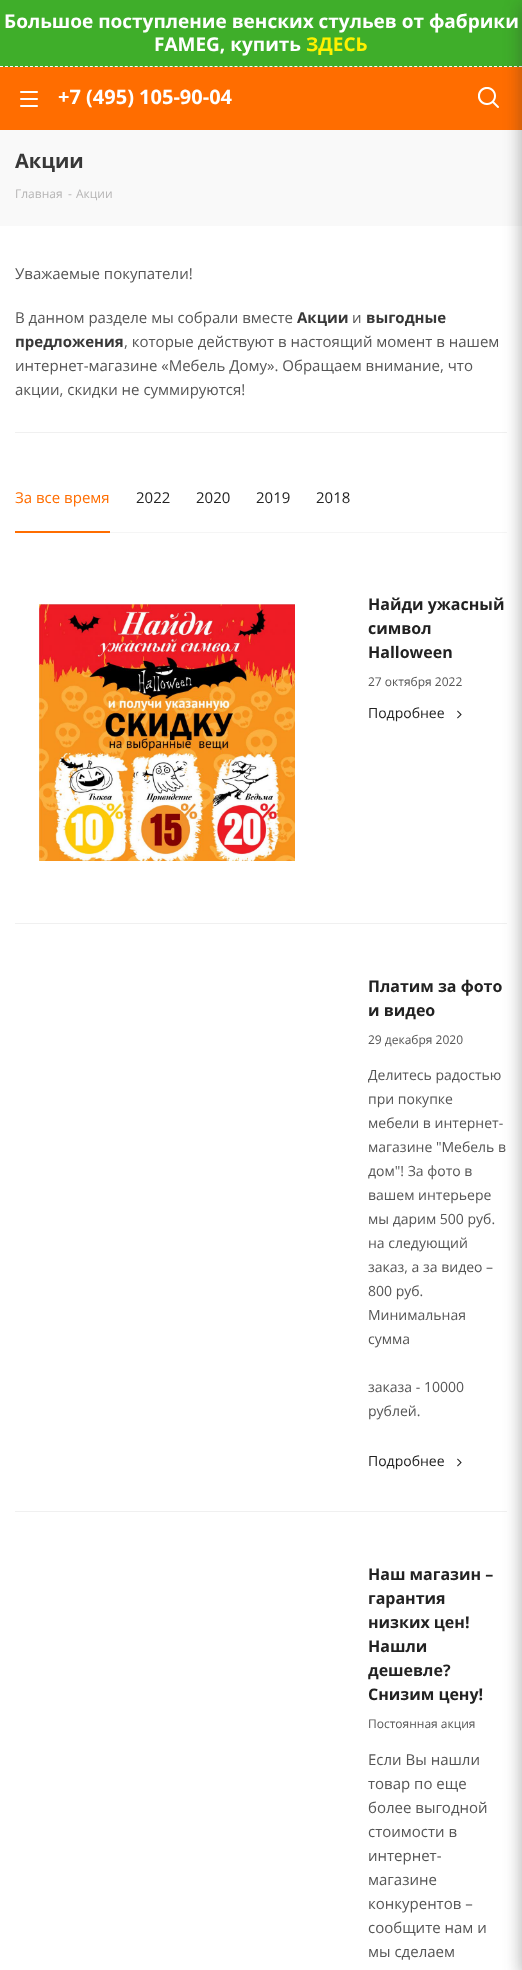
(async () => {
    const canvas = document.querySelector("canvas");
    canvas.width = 522;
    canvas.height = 1970;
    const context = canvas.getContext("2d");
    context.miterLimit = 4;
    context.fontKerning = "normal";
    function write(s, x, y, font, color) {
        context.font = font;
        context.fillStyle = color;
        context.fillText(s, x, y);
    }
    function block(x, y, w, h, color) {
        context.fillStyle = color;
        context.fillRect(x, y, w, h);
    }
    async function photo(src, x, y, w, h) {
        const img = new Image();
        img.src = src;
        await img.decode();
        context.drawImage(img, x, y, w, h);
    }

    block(0, 0, 522, 1970, "rgb(255, 255, 255)");
    block(0, 0, 522, 67, "rgb(63, 174, 42)");
    context.beginPath();
    context.moveTo(0, 66.5);
    context.lineTo(522, 66.5);
    context.strokeStyle = "rgb(255, 255, 255)";
    context.setLineDash([3, 1.99]);
    context.stroke();
    block(0, 67, 522, 63, "rgb(255, 109, 0)");
    await photo("media/2.png", 478, 87, 21, 21);
    block(0, 130, 522, 96, "rgb(249, 249, 249)");
    block(15, 432, 492, 1, "rgb(240, 240, 240)");
    block(110, 532, 397, 1, "rgb(245, 245, 245)");
    block(15, 923, 492, 1, "rgb(240, 240, 240)");
    block(15, 1511, 492, 1, "rgb(240, 240, 240)");
    context.fillStyle = "rgba(44, 44, 44, 0.4)";
    context.filter = "blur(9px)";
    context.beginPath();
    context.roundRect(522, 6, 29, 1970, 2);
    context.fill();
    context.filter = "none";
    write("Большое поступление венских стульев от фабрики", 4, 28, "bold 19px Open Sans", "rgb(255, 255, 255)");
    write("FAMEG, купить", 154, 51, "bold 19px Open Sans", "rgb(255, 255, 255)");
    write("ЗДЕСЬ", 306, 51, "bold 19px Open Sans", "rgb(255, 241, 0)");
    await photo("media/1.png", 20, 91, 18, 16);
    write("+7 (495) 105-90-04", 58, 104, "bold 20px Open Sans", "rgb(255, 255, 255)");
    write("Акции", 15, 168, "bold 20px Open Sans", "rgb(56, 56, 56)");
    write("Главная", 15, 198, "12px Open Sans", "rgb(182, 181, 181)");
    write("-", 68, 198, "12px Open Sans", "rgb(182, 181, 181)");
    write("Акции", 76, 198, "12px Open Sans", "rgb(182, 181, 181)");
    write("Уважаемые покупатели!", 15, 279, "15px Open Sans", "rgb(85, 85, 85)");
    write("В данном разделе мы собрали вместе", 15, 323, "15px Open Sans", "rgb(85, 85, 85)");
    write("Акции", 297, 323, "bold 15px Open Sans", "rgb(56, 56, 56)");
    write("и", 352, 323, "15px Open Sans", "rgb(85, 85, 85)");
    write("выгодные", 366, 323, "bold 15px Open Sans", "rgb(56, 56, 56)");
    write("предложения", 15, 347, "bold 15px Open Sans", "rgb(56, 56, 56)");
    write(", которые действуют в настоящий момент в нашем", 124, 347, "15px Open Sans", "rgb(85, 85, 85)");
    write("интернет-магазине «Мебель Дому». Обращаем внимание, что", 15, 371, "15px Open Sans", "rgb(85, 85, 85)");
    write("акции, скидки не суммируются!", 15, 395, "15px Open Sans", "rgb(85, 85, 85)");
    write("За все время", 15, 503, "15px Open Sans", "rgb(255, 109, 0)");
    block(15, 531, 95, 2, "rgb(255, 109, 0)");
    write("2022", 136, 503, "15px Open Sans", "rgb(34, 34, 34)");
    write("2020", 196, 503, "15px Open Sans", "rgb(34, 34, 34)");
    write("2019", 256, 503, "15px Open Sans", "rgb(34, 34, 34)");
    write("2018", 316, 503, "15px Open Sans", "rgb(34, 34, 34)");
    await photo("media/3.png", 39, 604, 256, 257);
    write("Найди ужасный", 368, 610, "bold 16px Open Sans", "rgb(34, 34, 34)");
    write("символ", 368, 634, "bold 16px Open Sans", "rgb(34, 34, 34)");
    write("Halloween", 368, 658, "bold 16px Open Sans", "rgb(34, 34, 34)");
    write("27 октября 2022", 368, 686, "12px Open Sans", "rgb(85, 85, 85)");
    write("Подробнее", 368, 718, "14px Open Sans", "rgb(34, 34, 34)");
    await photo("media/4.png", 457, 710, 5, 9);
    write("Платим за фото", 368, 992, "bold 16px Open Sans", "rgb(34, 34, 34)");
    write("и видео", 368, 1016, "bold 16px Open Sans", "rgb(34, 34, 34)");
    write("29 декабря 2020", 368, 1044, "12px Open Sans", "rgb(85, 85, 85)");
    write("Делитесь радостью", 368, 1080, "14px Open Sans", "rgb(85, 85, 85)");
    write("при покупке", 368, 1104, "14px Open Sans", "rgb(85, 85, 85)");
    write("мебели в интернет-", 368, 1128, "14px Open Sans", "rgb(85, 85, 85)");
    write("магазине \"Мебель в", 368, 1152, "14px Open Sans", "rgb(85, 85, 85)");
    write("дом\"! За фото в", 368, 1176, "14px Open Sans", "rgb(85, 85, 85)");
    write("вашем интерьере", 368, 1200, "14px Open Sans", "rgb(85, 85, 85)");
    write("мы дарим 500 руб.", 368, 1224, "14px Open Sans", "rgb(85, 85, 85)");
    write("на следующий", 368, 1248, "14px Open Sans", "rgb(85, 85, 85)");
    write("заказ, а за видео –", 368, 1272, "14px Open Sans", "rgb(85, 85, 85)");
    write("800 руб.", 368, 1296, "14px Open Sans", "rgb(85, 85, 85)");
    write("Минимальная", 368, 1320, "14px Open Sans", "rgb(85, 85, 85)");
    write("сумма", 368, 1344, "14px Open Sans", "rgb(85, 85, 85)");
    write("заказа - 10000", 368, 1392, "14px Open Sans", "rgb(85, 85, 85)");
    write("рублей.", 368, 1416, "14px Open Sans", "rgb(85, 85, 85)");
    write("Подробнее", 368, 1466, "14px Open Sans", "rgb(34, 34, 34)");
    await photo("media/4.png", 457, 1458, 5, 9);
    write("Наш магазин –", 368, 1580, "bold 16px Open Sans", "rgb(34, 34, 34)");
    write("гарантия", 368, 1604, "bold 16px Open Sans", "rgb(34, 34, 34)");
    write("низких цен!", 368, 1628, "bold 16px Open Sans", "rgb(34, 34, 34)");
    write("Нашли", 368, 1652, "bold 16px Open Sans", "rgb(34, 34, 34)");
    write("дешевле?", 368, 1676, "bold 16px Open Sans", "rgb(34, 34, 34)");
    write("Снизим цену!", 368, 1700, "bold 16px Open Sans", "rgb(34, 34, 34)");
    write("Постоянная акция", 368, 1728, "12px Open Sans", "rgb(85, 85, 85)");
    write("Если Вы нашли", 368, 1765, "15px Open Sans", "rgb(85, 85, 85)");
    write("товар по еще", 368, 1789, "15px Open Sans", "rgb(85, 85, 85)");
    write("более выгодной", 368, 1813, "15px Open Sans", "rgb(85, 85, 85)");
    write("стоимости в", 368, 1837, "15px Open Sans", "rgb(85, 85, 85)");
    write("интернет-", 368, 1861, "15px Open Sans", "rgb(85, 85, 85)");
    write("магазине", 368, 1885, "15px Open Sans", "rgb(85, 85, 85)");
    write("конкурентов –", 368, 1909, "15px Open Sans", "rgb(85, 85, 85)");
    write("сообщите нам и", 368, 1933, "15px Open Sans", "rgb(85, 85, 85)");
    write("мы сделаем", 368, 1957, "15px Open Sans", "rgb(85, 85, 85)");
})();
